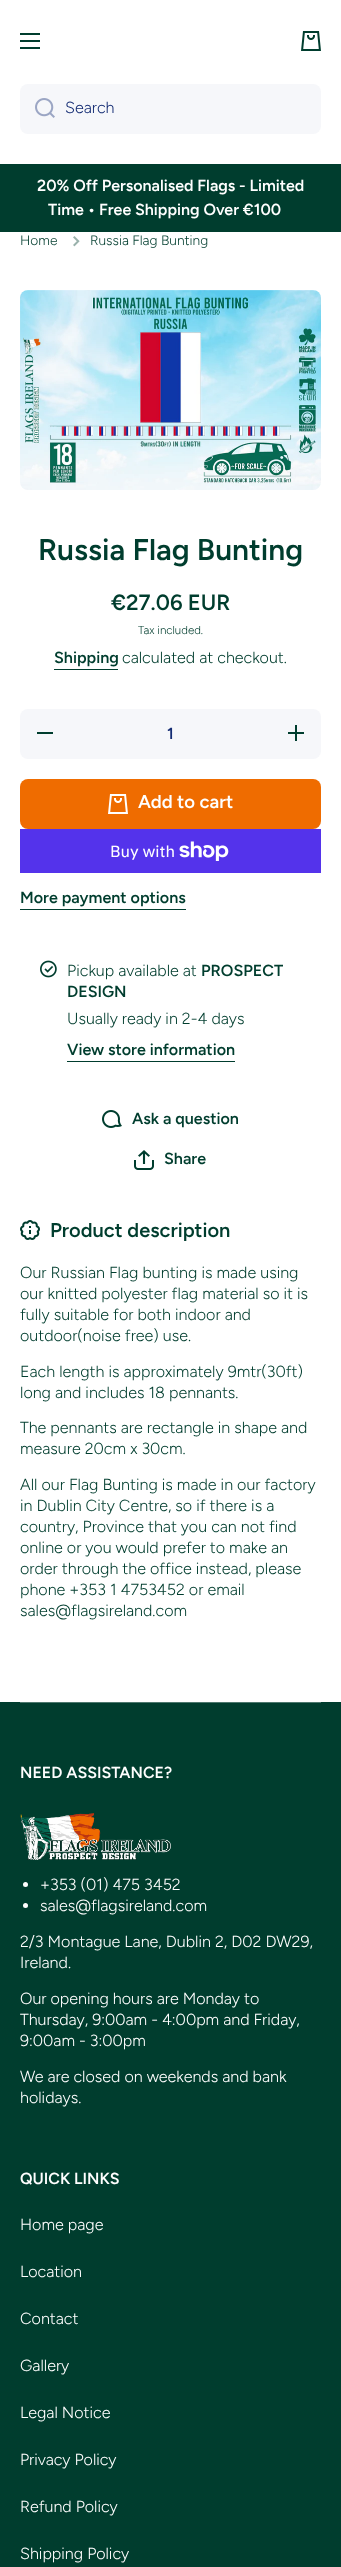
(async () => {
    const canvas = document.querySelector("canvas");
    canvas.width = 341;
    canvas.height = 2567;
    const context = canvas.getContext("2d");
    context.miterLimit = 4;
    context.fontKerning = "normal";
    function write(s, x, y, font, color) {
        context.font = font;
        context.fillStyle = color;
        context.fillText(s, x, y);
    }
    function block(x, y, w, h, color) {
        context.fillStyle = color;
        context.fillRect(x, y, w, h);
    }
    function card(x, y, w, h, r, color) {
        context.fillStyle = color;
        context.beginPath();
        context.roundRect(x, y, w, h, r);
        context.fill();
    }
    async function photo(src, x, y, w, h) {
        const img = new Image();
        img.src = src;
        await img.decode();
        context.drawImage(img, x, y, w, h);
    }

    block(0, 0, 341, 2567, "rgb(255, 255, 255)");
    block(20, 33, 20, 2, "rgb(0, 61, 46)");
    block(20, 40, 20, 2, "rgb(0, 61, 46)");
    block(20, 47, 20, 2, "rgb(0, 61, 46)");
    await photo("media/1.png", 301, 31, 20, 20);
    card(20, 84, 301, 50, 8, "rgb(246, 247, 250)");
    await photo("media/2.png", 35, 98, 20, 20);
    write("Search", 65, 113, "300 16.1px Figtree", "rgb(20, 44, 115)");
    block(0, 164, 341, 68, "rgb(0, 61, 46)");
    write("20% Off Personalised Flags - Limited", 37, 191, "600 16px Figtree", "rgb(255, 255, 255)");
    write("Time • Free Shipping Over €100", 48, 215, "600 16px Figtree", "rgb(255, 255, 255)");
    write("Home", 20, 245, "300 13.75px Figtree", "rgb(0, 61, 46)");
    await photo("media/3.png", 73, 236, 7, 11);
    write("Russia Flag Bunting", 90, 245, "300 13.75px Figtree", "rgb(0, 61, 46)");
    await photo("media/4.png", 20, 290, 301, 200);
    write("Russia Flag Bunting", 38, 560, "600 30px Figtree", "rgb(0, 61, 46)");
    write("€27.06 EUR", 111, 610, "600 22px Figtree", "rgb(0, 61, 46)");
    write("Tax included.", 138, 634, "300 11.5px Figtree", "rgb(0, 61, 46)");
    write("Shipping", 54, 663, "600 16.1px Figtree", "rgb(0, 61, 46)");
    block(54, 669, 64, 1, "rgb(0, 61, 46)");
    write("calculated at checkout.", 122, 663, "300 16.1px Figtree", "rgb(0, 61, 46)");
    card(20, 709, 301, 50, 8, "rgb(246, 247, 250)");
    block(37, 732, 16, 2, "rgb(0, 61, 46)");
    write("1", 167, 739, "600 16px Figtree", "rgb(20, 44, 115)");
    await photo("media/5.png", 288, 725, 16, 16);
    card(20, 779, 301, 50, 8, "rgb(239, 108, 0)");
    await photo("media/6.png", 108, 794, 20, 20);
    write("Add to cart", 138, 808, "600 18.5px Figtree", "rgb(255, 255, 255)");
    block(20, 829, 301, 44, "rgb(84, 51, 235)");
    write("Buy with", 110, 857, "16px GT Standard", "rgb(255, 255, 255)");
    await photo("media/7.png", 179, 841, 50, 20);
    write("More payment options", 20, 903, "600 16.1px Figtree", "rgb(0, 61, 46)");
    block(20, 909, 166, 1, "rgb(0, 61, 46)");
    await photo("media/8.png", 40, 960, 17, 18);
    write("Pickup available at", 67, 976, "300 16.1px Figtree", "rgb(0, 61, 46)");
    write("PROSPECT", 201, 976, "600 16.1px Figtree", "rgb(0, 61, 46)");
    write("DESIGN", 67, 997, "600 16.1px Figtree", "rgb(0, 61, 46)");
    write("Usually ready in 2-4 days", 67, 1024, "300 16.1px Figtree", "rgb(0, 61, 46)");
    write("View store information", 67, 1055, "600 16.1px Figtree", "rgb(0, 61, 46)");
    block(67, 1061, 168, 1, "rgb(0, 61, 46)");
    await photo("media/9.png", 102, 1110, 20, 18);
    write("Ask a question", 132, 1124, "600 16.1px Figtree", "rgb(0, 61, 46)");
    await photo("media/10.png", 134, 1150, 20, 20);
    write("Share", 164, 1164, "600 16.1px Figtree", "rgb(0, 61, 46)");
    await photo("media/11.png", 20, 1220, 20, 20);
    write("Product description", 50, 1237, "600 20px Figtree", "rgb(0, 61, 46)");
    write("Our Russian Flag bunting is made using", 20, 1278, "300 16.1px Figtree", "rgb(0, 61, 46)");
    write("our knitted polyester flag material so it is", 20, 1299, "300 16.1px Figtree", "rgb(0, 61, 46)");
    write("fully suitable for both indoor and", 20, 1320, "300 16.1px Figtree", "rgb(0, 61, 46)");
    write("outdoor(noise free) use.", 20, 1341, "300 16.1px Figtree", "rgb(0, 61, 46)");
    write("Each length is approximately 9mtr(30ft)", 20, 1377, "300 16.1px Figtree", "rgb(0, 61, 46)");
    write("long and includes 18 pennants.", 20, 1398, "300 16.1px Figtree", "rgb(0, 61, 46)");
    write("The pennants are rectangle in shape and", 20, 1433, "300 16.1px Figtree", "rgb(0, 61, 46)");
    write("measure 20cm x 30cm.", 20, 1454, "300 16.1px Figtree", "rgb(0, 61, 46)");
    write("All our Flag Bunting is made in our factory", 20, 1490, "300 16.1px Figtree", "rgb(0, 61, 46)");
    write("in Dublin City Centre, so if there is a", 20, 1511, "300 16.1px Figtree", "rgb(0, 61, 46)");
    write("country, Province that you can not find", 20, 1532, "300 16.1px Figtree", "rgb(0, 61, 46)");
    write("online or you would prefer to make an", 20, 1553, "300 16.1px Figtree", "rgb(0, 61, 46)");
    write("order through the office instead, please", 20, 1574, "300 16.1px Figtree", "rgb(0, 61, 46)");
    write("phone +353 1 4753452 or email", 20, 1595, "300 16.1px Figtree", "rgb(0, 61, 46)");
    write("sales@flagsireland.com", 20, 1616, "300 16.1px Figtree", "rgb(0, 61, 46)");
    block(0, 1702, 341, 865, "rgb(0, 61, 46)");
    block(20, 1702, 301, 1, "rgb(77, 119, 109)");
    write("NEED ASSISTANCE?", 20, 1778, "600 16px Figtree", "rgb(255, 255, 255)");
    await photo("media/12.png", 20, 1813, 151, 47);
    context.beginPath();
    context.arc(25.5, 1884.5, 2.5, 0, Math.PI * 2);
    context.fill();
    write("+353 (01) 475 3452", 40, 1890, "300 16.1px Figtree", "rgb(255, 255, 255)");
    context.beginPath();
    context.arc(25.5, 1905.5, 2.5, 0, Math.PI * 2);
    context.fill();
    write("sales@flagsireland.com", 40, 1911, "300 16.1px Figtree", "rgb(255, 255, 255)");
    write("2/3 Montague Lane, Dublin 2, D02 DW29,", 20, 1947, "300 16.1px Figtree", "rgb(255, 255, 255)");
    write("Ireland.", 20, 1968, "300 16.1px Figtree", "rgb(255, 255, 255)");
    write("Our opening hours are Monday to", 20, 2004, "300 16.1px Figtree", "rgb(255, 255, 255)");
    write("Thursday, 9:00am - 4:00pm and Friday,", 20, 2025, "300 16.1px Figtree", "rgb(255, 255, 255)");
    write("9:00am - 3:00pm", 20, 2046, "300 16.1px Figtree", "rgb(255, 255, 255)");
    write("We are closed on weekends and bank", 20, 2082, "300 16.1px Figtree", "rgb(255, 255, 255)");
    write("holidays.", 20, 2103, "300 16.1px Figtree", "rgb(255, 255, 255)");
    write("QUICK LINKS", 20, 2184, "600 16px Figtree", "rgb(255, 255, 255)");
    write("Home page", 20, 2230, "300 16.1px Figtree", "rgb(255, 255, 255)");
    write("Location", 20, 2277, "300 16.1px Figtree", "rgb(255, 255, 255)");
    write("Contact", 20, 2324, "300 16.1px Figtree", "rgb(255, 255, 255)");
    write("Gallery", 20, 2371, "300 16.1px Figtree", "rgb(255, 255, 255)");
    write("Legal Notice", 20, 2418, "300 16.1px Figtree", "rgb(255, 255, 255)");
    write("Privacy Policy", 20, 2465, "300 16.1px Figtree", "rgb(255, 255, 255)");
    write("Refund Policy", 20, 2512, "300 16.1px Figtree", "rgb(255, 255, 255)");
    write("Shipping Policy", 20, 2559, "300 16.1px Figtree", "rgb(255, 255, 255)");
})();
